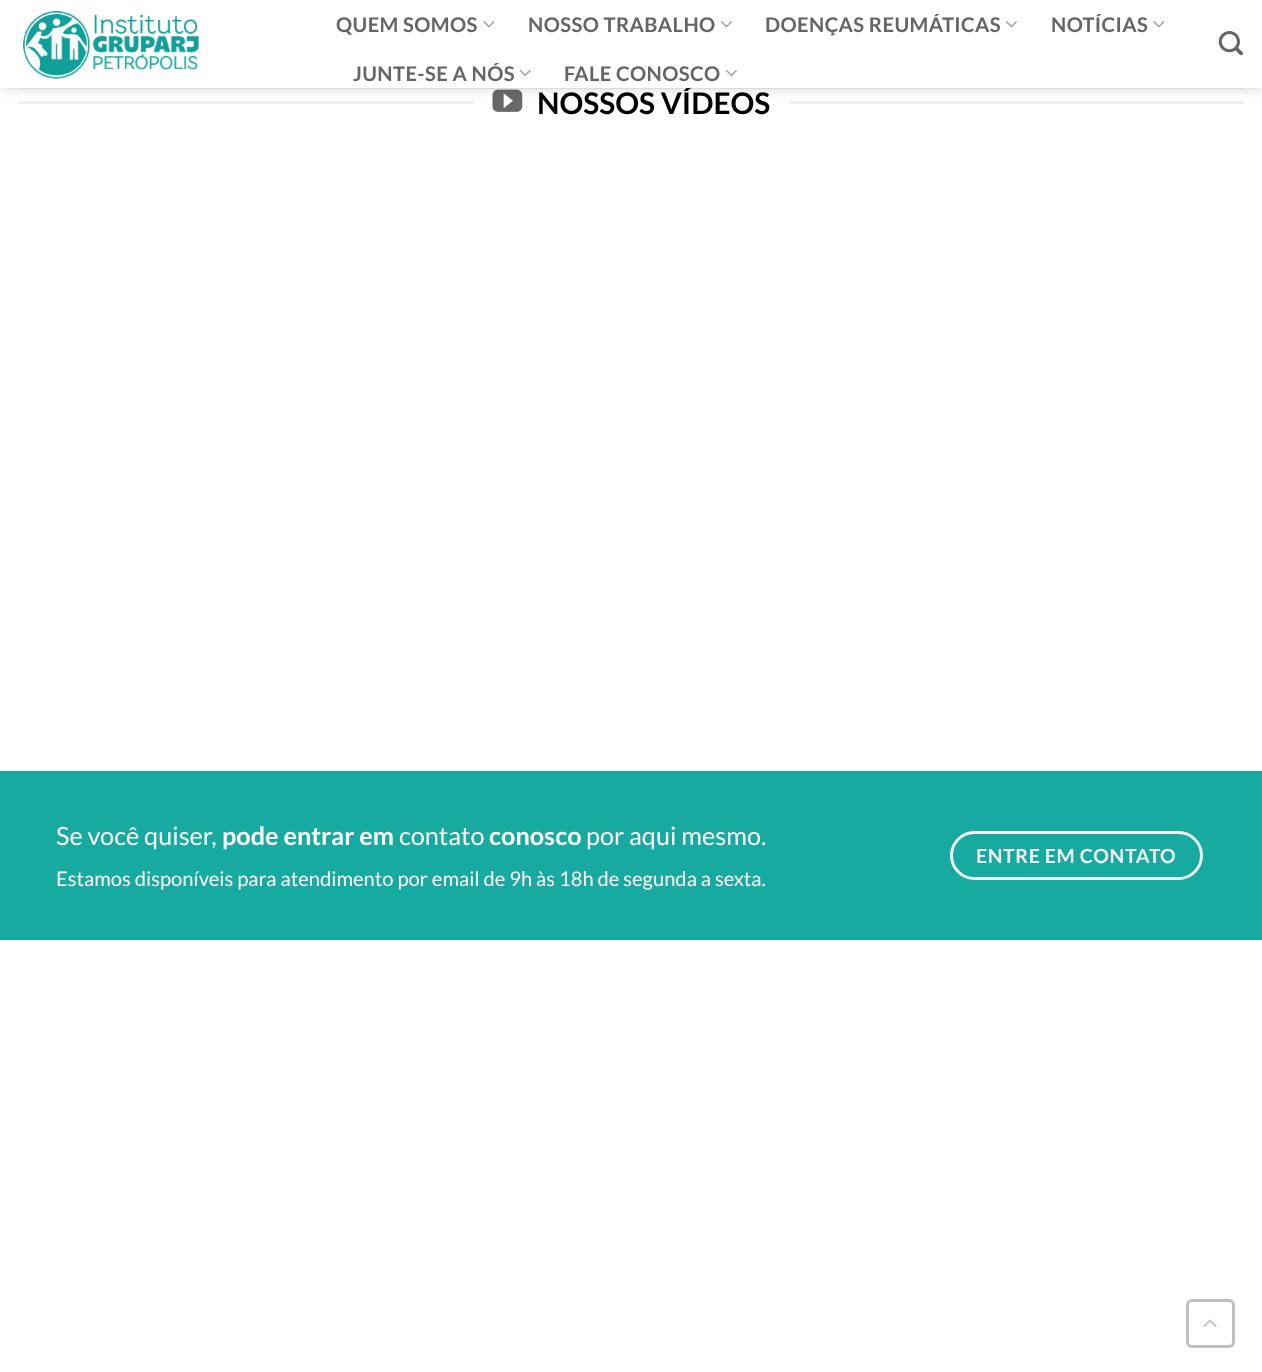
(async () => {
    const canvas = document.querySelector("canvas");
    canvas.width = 1262;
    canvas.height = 1372;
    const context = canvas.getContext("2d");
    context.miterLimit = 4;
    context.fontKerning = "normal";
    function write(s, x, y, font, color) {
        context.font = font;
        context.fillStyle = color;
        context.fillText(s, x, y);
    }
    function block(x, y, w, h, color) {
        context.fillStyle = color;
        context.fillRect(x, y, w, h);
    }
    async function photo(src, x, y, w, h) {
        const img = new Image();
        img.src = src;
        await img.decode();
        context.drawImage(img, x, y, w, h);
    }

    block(0, 0, 1262, 1372, "rgb(255, 255, 255)");
    block(598, 0, 67, 34, "rgb(251, 251, 251)");
    context.fillStyle = "rgb(255, 255, 255)";
    context.beginPath();
    context.moveTo(0, -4);
    context.lineTo(0, 771);
    context.lineTo(1262, 771);
    context.lineTo(1262, -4);
    context.lineTo(669, -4);
    context.lineTo(631, 34);
    context.lineTo(594, -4);
    context.closePath();
    context.fill();
    block(19, 101, 455, 3, "rgb(238, 238, 238)");
    await photo("media/7.png", 492, 89, 31, 23);
    block(789, 101, 455, 3, "rgb(238, 238, 238)");
    context.save();
    context.beginPath();
    context.moveTo(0, 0);
    context.lineTo(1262, 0);
    context.lineTo(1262, 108);
    context.lineTo(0, 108);
    context.closePath();
    context.moveTo(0, 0);
    context.lineTo(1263, 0);
    context.lineTo(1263, 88);
    context.lineTo(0, 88);
    context.closePath();
    context.clip("evenodd");
    context.fillStyle = "rgba(0, 0, 0, 0.15)";
    context.filter = "blur(6px)";
    context.beginPath();
    context.rect(1, 1, 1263, 88);
    context.fill();
    context.filter = "none";
    context.restore();
    write("NOSSOS VÍDEOS", 537, 114, "bold 29.75px Lato", "rgb(4, 4, 4)");
    block(0, 0, 1262, 88, "rgba(255, 255, 255, 0.9)");
    await photo("media/1.png", 23, 10, 177, 69);
    context.letterSpacing = "0.4px";
    write("QUEM SOMOS", 336, 32, "bold 20.2px Lato", "rgb(101, 101, 101)");
    await photo("media/2.png", 483, 21, 12, 7);
    write("NOSSO TRABALHO", 528, 32, "bold 20.2px Lato", "rgb(101, 101, 101)");
    await photo("media/3.png", 721, 21, 11, 7);
    write("DOENÇAS REUMÁTICAS", 765, 32, "bold 20.2px Lato", "rgb(101, 101, 101)");
    await photo("media/3.png", 1006, 21, 11, 7);
    write("NOTÍCIAS", 1051, 32, "bold 20.2px Lato", "rgb(101, 101, 101)");
    await photo("media/2.png", 1153, 21, 12, 7);
    write("JUNTE-SE A NÓS", 353, 81, "bold 20.2px Lato", "rgb(101, 101, 101)");
    await photo("media/4.png", 519, 69, 12, 8);
    write("FALE CONOSCO", 564, 81, "bold 20.2px Lato", "rgb(101, 101, 101)");
    await photo("media/5.png", 725, 69, 12, 8);
    await photo("media/6.png", 1218, 31, 25, 25);
    block(19, 88, 1225, 1, "rgba(74, 74, 74, 0.1)");
    block(0, 771, 1262, 169, "rgb(22, 170, 161)");
    context.letterSpacing = "0px";
    write("Se você quiser,", 56, 845, "25.25px Lato", "rgb(255, 255, 255)");
    write("pode entrar em", 222, 845, "bold 25.25px Lato", "rgb(255, 255, 255)");
    write("contato", 399, 845, "25.25px Lato", "rgb(255, 255, 255)");
    write("conosco", 489, 845, "bold 25.25px Lato", "rgb(255, 255, 255)");
    write("por aqui mesmo.", 586, 845, "25.25px Lato", "rgb(255, 255, 255)");
    write("Estamos disponíveis para atendimento por email de 9h às 18h de segunda a sexta.", 56, 886, "20.2px Lato", "rgb(255, 255, 255)");
    context.beginPath();
    context.roundRect(951.5, 832.5, 250, 46, 23);
    context.strokeStyle = "rgb(241, 241, 241)";
    context.lineWidth = 3;
    context.stroke();
    context.letterSpacing = "0.6px";
    write("ENTRE EM CONTATO", 976, 863, "bold 19.5px Lato", "rgb(241, 241, 241)");
    context.beginPath();
    context.roundRect(1187.5, 1300.5, 46, 46, 4.5);
    context.strokeStyle = "rgb(192, 192, 192)";
    context.stroke();
    await photo("media/8.png", 1203, 1319, 14, 8);
})();
